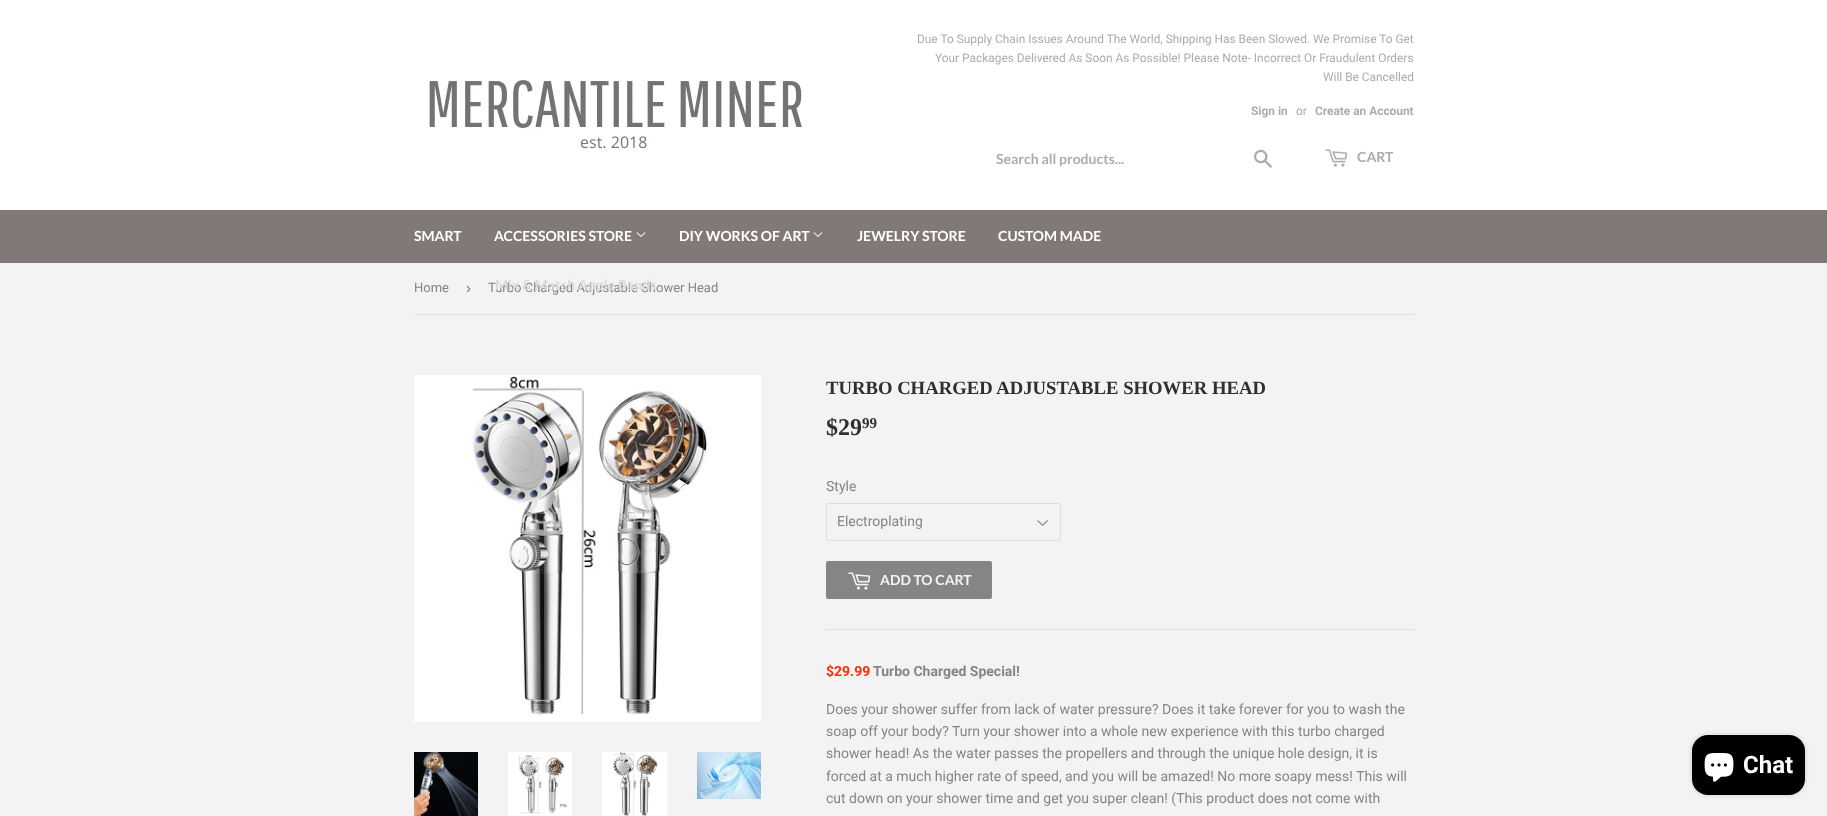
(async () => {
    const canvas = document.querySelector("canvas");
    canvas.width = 1827;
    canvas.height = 816;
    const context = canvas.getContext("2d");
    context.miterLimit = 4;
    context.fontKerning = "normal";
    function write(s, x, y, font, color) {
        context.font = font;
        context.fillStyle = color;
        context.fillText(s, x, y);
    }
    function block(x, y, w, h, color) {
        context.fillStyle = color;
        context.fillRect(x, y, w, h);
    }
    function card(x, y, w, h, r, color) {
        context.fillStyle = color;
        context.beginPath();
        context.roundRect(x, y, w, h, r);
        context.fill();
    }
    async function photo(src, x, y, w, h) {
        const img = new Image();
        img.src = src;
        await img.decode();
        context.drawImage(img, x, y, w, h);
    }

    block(0, 0, 1827, 816, "rgb(243, 243, 243)");
    block(0, 0, 1827, 210, "rgb(255, 255, 255)");
    await photo("media/1.png", 429, 79, 373, 72);
    write("Due To Supply Chain Issues Around The World, Shipping Has Been Slowed. We Promise To Get", 917, 43, "11.9px Roboto", "rgb(175, 171, 171)");
    write("Your Packages Delivered As Soon As Possible! Please Note- Incorrect Or Fraudulent Orders", 935, 62, "11.9px Roboto", "rgb(175, 171, 171)");
    write("Will Be Cancelled", 1323, 81, "11.9px Roboto", "rgb(175, 171, 171)");
    write("Sign in", 1251, 115, "bold 11.9px Roboto", "rgb(175, 171, 171)");
    write("or", 1296, 115, "11.9px Roboto", "rgb(175, 171, 171)");
    write("Create an Account", 1315, 115, "bold 11.9px Roboto", "rgb(175, 171, 171)");
    write("Search all products...", 996, 164, "bold 14px Lato", "rgb(175, 171, 171)");
    await photo("media/2.png", 1254, 149, 18, 19);
    await photo("media/3.png", 1325, 149, 23, 18);
    write("CART", 1357, 162, "bold 14px Lato", "rgb(175, 171, 171)");
    block(0, 210, 1827, 53, "rgb(128, 121, 120)");
    write("SMART", 414, 241, "bold 14px Lato", "rgb(255, 255, 255)");
    write("ACCESSORIES STORE", 494, 241, "bold 14px Lato", "rgb(255, 255, 255)");
    await photo("media/4.png", 636, 232, 10, 5);
    write("Turbo Charged Adjustable Shower Head", 488, 292, "13px Roboto", "rgb(133, 133, 133)");
    write("Mix & Match Apple Bands", 495, 290, "bold 14px Lato", "rgb(219, 219, 219)");
    write("DIY WORKS OF ART", 679, 241, "bold 14px Lato", "rgb(255, 255, 255)");
    await photo("media/4.png", 813, 232, 10, 5);
    write("JEWELRY STORE", 857, 241, "bold 14px Lato", "rgb(255, 255, 255)");
    write("CUSTOM MADE", 998, 241, "bold 14px Lato", "rgb(255, 255, 255)");
    block(414, 314, 1000, 1, "rgb(222, 222, 222)");
    write("Home", 414, 292, "13px Roboto", "rgb(133, 133, 133)");
    write("›", 466, 293, "15px Liberation Sans", "rgb(118, 118, 118)");
    await photo("media/5.png", 414, 375, 347, 347);
    await photo("media/6.png", 414, 752, 64, 64);
    await photo("media/7.png", 508, 752, 64, 64);
    await photo("media/8.png", 602, 752, 65, 64);
    await photo("media/9.png", 697, 752, 64, 47);
    write("TURBO CHARGED ADJUSTABLE SHOWER HEAD", 826, 394, "bold 18.7px Liberation Serif", "rgb(47, 47, 47)");
    write("$29", 826, 435, "bold 24px Liberation Serif", "rgb(47, 47, 47)");
    write("99", 862, 428, "bold 15px Liberation Serif", "rgb(47, 47, 47)");
    write("Style", 826, 491, "14px Roboto", "rgb(133, 133, 133)");
    await photo("media/10.png", 1037, 520, 11, 6);
    context.beginPath();
    context.roundRect(826.5, 503.5, 234, 37, 1.5);
    context.strokeStyle = "rgb(222, 222, 222)";
    context.stroke();
    write("Electroplating", 837, 526, "14px Roboto", "rgb(133, 133, 133)");
    card(826, 561, 166, 38, 2, "rgb(133, 133, 133)");
    await photo("media/11.png", 848, 572, 23, 18);
    write("ADD TO CART", 880, 585, "bold 14px Lato", "rgb(243, 243, 243)");
    block(826, 629, 588, 1, "rgb(222, 222, 222)");
    write("$29.99", 826, 676, "bold 14px Roboto", "rgb(255, 42, 0)");
    write("Turbo Charged Special!", 873, 676, "bold 14px Roboto", "rgb(133, 133, 133)");
    write("Does your shower suffer from lack of water pressure? Does it take forever for you to wash the", 826, 714, "14px Roboto", "rgb(133, 133, 133)");
    write("soap off your body? Turn your shower into a whole new experience with this turbo charged", 826, 736, "14px Roboto", "rgb(133, 133, 133)");
    write("shower head! As the water passes the propellers and through the unique hole design, it is", 826, 758, "14px Roboto", "rgb(133, 133, 133)");
    write("forced at a much higher rate of speed, and you will be amazed! No more soapy mess! This will", 826, 781, "14px Roboto", "rgb(133, 133, 133)");
    write("cut down on your shower time and get you super clean! (This product does not come with", 826, 803, "14px Roboto", "rgb(133, 133, 133)");
    context.fillStyle = "rgba(0, 0, 0, 0.15)";
    context.filter = "blur(2.5px)";
    context.beginPath();
    context.roundRect(1692, 735, 113, 60, 16);
    context.fill();
    context.filter = "none";
    card(1692, 735, 113, 60, 16, "rgb(0, 0, 0)");
    await photo("media/12.png", 1704, 753, 30, 29);
    write("Chat", 1743, 773, "bold 24px Roboto", "rgb(255, 255, 255)");
})();
